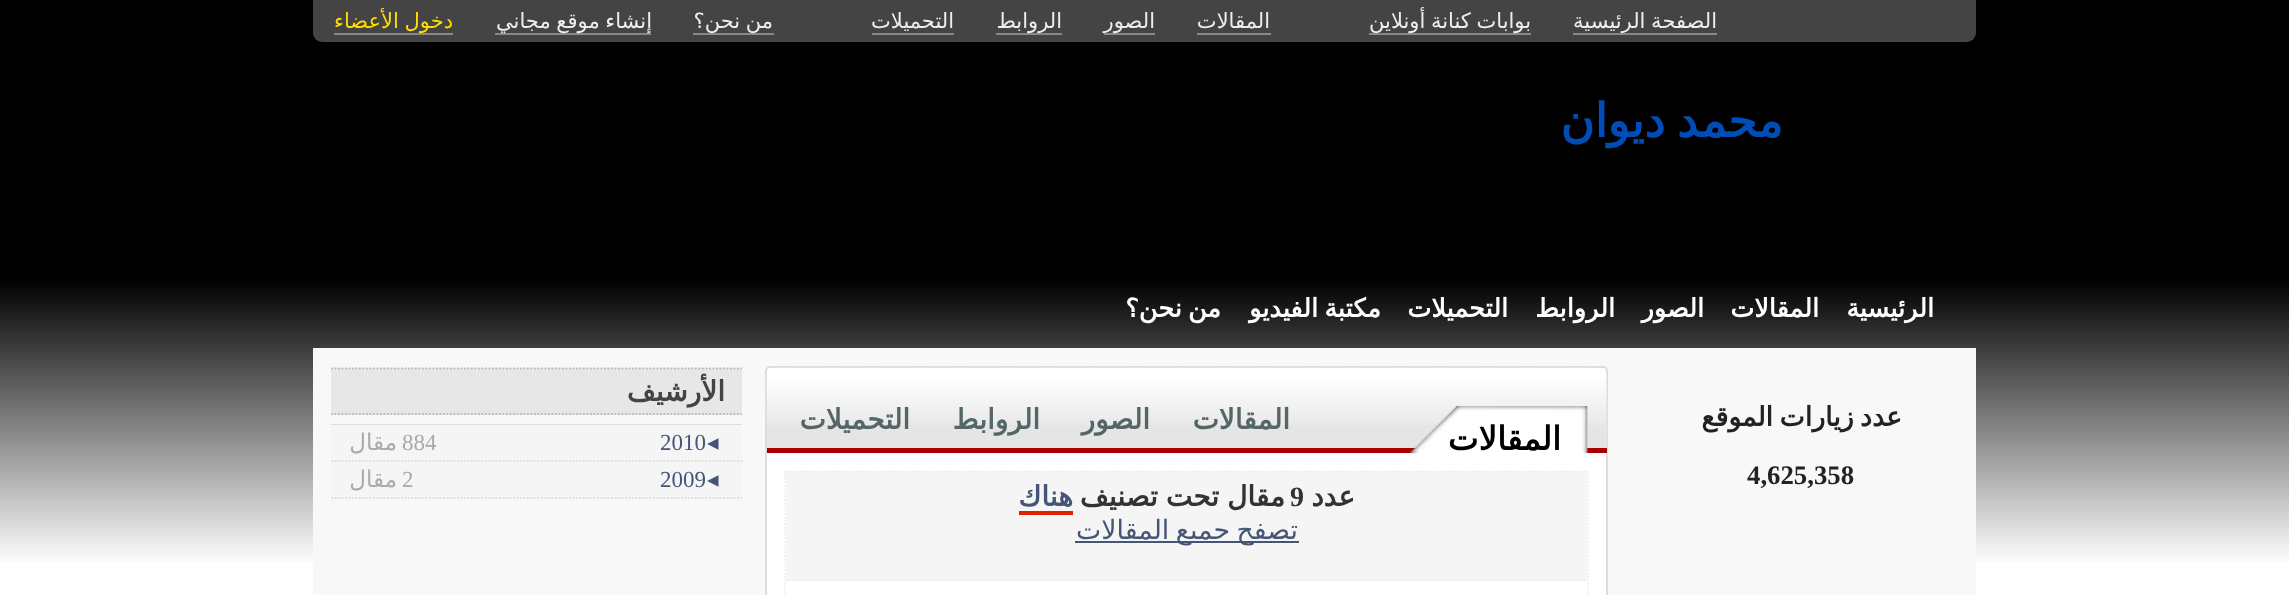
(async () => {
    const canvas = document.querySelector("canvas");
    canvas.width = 2289;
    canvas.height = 595;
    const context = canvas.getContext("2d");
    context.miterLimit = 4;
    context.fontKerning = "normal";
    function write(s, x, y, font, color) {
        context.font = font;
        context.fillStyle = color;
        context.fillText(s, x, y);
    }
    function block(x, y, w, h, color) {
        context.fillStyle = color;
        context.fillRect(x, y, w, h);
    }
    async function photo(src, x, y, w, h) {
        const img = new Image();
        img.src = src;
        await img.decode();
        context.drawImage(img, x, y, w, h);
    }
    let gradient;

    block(0, 0, 2289, 595, "rgb(255, 255, 255)");
    gradient = context.createLinearGradient(0, 595, 0, 0);
    gradient.addColorStop(0.05, "rgb(255, 255, 255)");
    gradient.addColorStop(0.53, "rgb(0, 0, 0)");
    context.fillStyle = gradient;
    context.fillRect(0, 0, 2289, 562);
    context.fillStyle = "rgb(68, 68, 68)";
    context.beginPath();
    context.roundRect(313, 0, 1663, 42, [0, 0, 9, 9]);
    context.fill();
    block(1573, 33, 144, 2, "rgb(136, 136, 136)");
    context.wordSpacing = "-1px";
    context.direction = "rtl";
    write("الصفحة الرئيسية", 1717, 28, "21px DejaVu Sans", "rgb(238, 238, 238)");
    block(1369, 33, 162, 2, "rgb(136, 136, 136)");
    write("بوابات كنانة أونلاين", 1531, 28, "21px DejaVu Sans", "rgb(238, 238, 238)");
    context.wordSpacing = "0px";
    write("المقالات", 1270, 28, "21px DejaVu Sans", "rgb(238, 238, 238)");
    block(1197, 33, 74, 2, "rgb(136, 136, 136)");
    block(1104, 33, 51, 2, "rgb(136, 136, 136)");
    write("الصور", 1155, 28, "21px DejaVu Sans", "rgb(238, 238, 238)");
    block(996, 33, 66, 2, "rgb(136, 136, 136)");
    write("الروابط", 1062, 28, "21px DejaVu Sans", "rgb(238, 238, 238)");
    write("التحميلات", 954, 28, "21px DejaVu Sans", "rgb(238, 238, 238)");
    block(872, 33, 82, 2, "rgb(136, 136, 136)");
    block(693, 33, 81, 2, "rgb(136, 136, 136)");
    context.wordSpacing = "-1px";
    write("من نحن؟", 773, 28, "21px DejaVu Sans", "rgb(238, 238, 238)");
    block(495, 33, 156, 2, "rgb(136, 136, 136)");
    write("إنشاء موقع مجاني", 652, 28, "21px DejaVu Sans", "rgb(238, 238, 238)");
    block(334, 33, 119, 2, "rgb(136, 136, 136)");
    write("دخول الأعضاء", 453, 28, "21px DejaVu Sans", "rgb(255, 221, 0)");
    context.wordSpacing = "-3px";
    write("محمد ديوان", 1783, 137, "bold 46.5px DejaVu Sans", "rgb(0, 77, 184)");
    context.wordSpacing = "0px";
    write("الرئيسية", 1934, 317, "bold 25.5px DejaVu Sans", "rgb(255, 255, 255)");
    write("المقالات", 1819, 317, "bold 25.5px DejaVu Sans", "rgb(255, 255, 255)");
    write("الصور", 1704, 317, "bold 25.5px DejaVu Sans", "rgb(255, 255, 255)");
    write("الروابط", 1615, 317, "bold 25.5px DejaVu Sans", "rgb(255, 255, 255)");
    write("التحميلات", 1508, 317, "bold 25.5px DejaVu Sans", "rgb(255, 255, 255)");
    context.wordSpacing = "-2px";
    write("مكتبة الفيديو", 1381, 317, "bold 25.5px DejaVu Sans", "rgb(255, 255, 255)");
    write("من نحن؟", 1221, 317, "bold 25.5px DejaVu Sans", "rgb(255, 255, 255)");
    block(313, 348, 1663, 247, "rgb(248, 248, 248)");
    write("عدد زيارات الموقع", 1902, 426, "bold 26.75px DejaVu Sans", "rgb(34, 34, 34)");
    context.wordSpacing = "0px";
    context.direction = "ltr";
    write("4,625,358", 1747, 484, "bold 26.75px Liberation Serif", "rgb(34, 34, 34)");
    context.fillStyle = "rgb(255, 255, 255)";
    context.beginPath();
    context.roundRect(766, 367, 841, 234, 4);
    context.fill();
    context.strokeStyle = "rgb(221, 221, 221)";
    context.lineWidth = 2;
    context.stroke();
    context.fillStyle = "rgb(229, 229, 229)";
    context.beginPath();
    context.roundRect(767, 368, 840, 85, [9, 9, 0, 0]);
    context.fill();
    await photo("media/1.png", 766, 367, 841, 58);
    block(767, 448, 840, 5, "rgb(168, 0, 0)");
    await photo("media/2.png", 1410, 406, 178, 48);
    context.direction = "rtl";
    write("المقالات", 1561, 450, "bold 32.5px DejaVu Sans", "rgb(0, 0, 0)");
    write("المقالات", 1290, 429, "bold 28px DejaVu Sans", "rgb(85, 102, 102)");
    write("الصور", 1150, 429, "bold 28px DejaVu Sans", "rgb(85, 102, 102)");
    write("الروابط", 1040, 429, "bold 28px DejaVu Sans", "rgb(85, 102, 102)");
    write("التحميلات", 910, 429, "bold 28px DejaVu Sans", "rgb(85, 102, 102)");
    context.beginPath();
    context.moveTo(1588, 471);
    context.lineTo(1588, 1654);
    context.strokeStyle = "rgb(238, 238, 238)";
    context.lineWidth = 1.8;
    context.setLineDash([1.75, 1.75]);
    context.stroke();
    context.beginPath();
    context.moveTo(785, 471);
    context.lineTo(785, 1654);
    context.stroke();
    block(786, 471, 801, 110, "rgb(245, 245, 245)");
    context.beginPath();
    context.moveTo(786, 471.5);
    context.lineTo(1587, 471.5);
    context.stroke();
    context.beginPath();
    context.moveTo(786, 580);
    context.lineTo(1587, 580);
    context.stroke();
    write("عدد", 1355, 506, "bold 28px DejaVu Sans", "rgb(51, 51, 51)");
    context.direction = "ltr";
    write("9", 1290, 506, "bold 28px Liberation Serif", "rgb(51, 51, 51)");
    context.wordSpacing = "-1px";
    context.direction = "rtl";
    write("مقال تحت تصنيف", 1285, 506, "bold 28px DejaVu Sans", "rgb(51, 51, 51)");
    context.wordSpacing = "0px";
    write("هناك", 1073, 506, "bold 28px DejaVu Sans", "rgb(68, 85, 119)");
    block(1019, 511, 54, 4, "rgb(221, 34, 0)");
    block(1075, 541, 224, 2, "rgb(68, 85, 119)");
    context.wordSpacing = "-2px";
    write("تصفح جميع المقالات", 1298, 539, "26.75px DejaVu Sans", "rgb(68, 85, 119)");
    block(331, 368, 411, 47, "rgb(231, 231, 231)");
    context.beginPath();
    context.moveTo(331, 368.5);
    context.lineTo(742, 368.5);
    context.strokeStyle = "rgb(187, 187, 187)";
    context.stroke();
    context.beginPath();
    context.moveTo(331, 414);
    context.lineTo(742, 414);
    context.stroke();
    context.wordSpacing = "0px";
    write("الأرشيف", 725, 401, "bold 28px DejaVu Sans", "rgb(68, 68, 68)");
    block(331, 424, 411, 1, "rgb(221, 221, 221)");
    block(331, 425, 411, 74, "rgb(245, 245, 245)");
    context.beginPath();
    context.moveTo(331, 461);
    context.lineTo(742, 461);
    context.strokeStyle = "rgb(221, 221, 221)";
    context.stroke();
    context.direction = "ltr";
    write("◂", 707, 450, "23px DejaVu Sans", "rgb(68, 85, 119)");
    write("2010", 660, 450, "23px Liberation Serif", "rgb(68, 85, 119)");
    write("884", 402, 450, "23px Liberation Serif", "rgb(170, 170, 170)");
    context.direction = "rtl";
    write("مقال", 397, 450, "23px DejaVu Sans", "rgb(170, 170, 170)");
    context.beginPath();
    context.moveTo(331, 498);
    context.lineTo(742, 498);
    context.stroke();
    context.direction = "ltr";
    write("◂", 707, 487, "23px DejaVu Sans", "rgb(68, 85, 119)");
    write("2009", 660, 487, "23px Liberation Serif", "rgb(68, 85, 119)");
    write("2", 402, 487, "23px Liberation Serif", "rgb(170, 170, 170)");
    context.direction = "rtl";
    write("مقال", 397, 487, "23px DejaVu Sans", "rgb(170, 170, 170)");
})();
